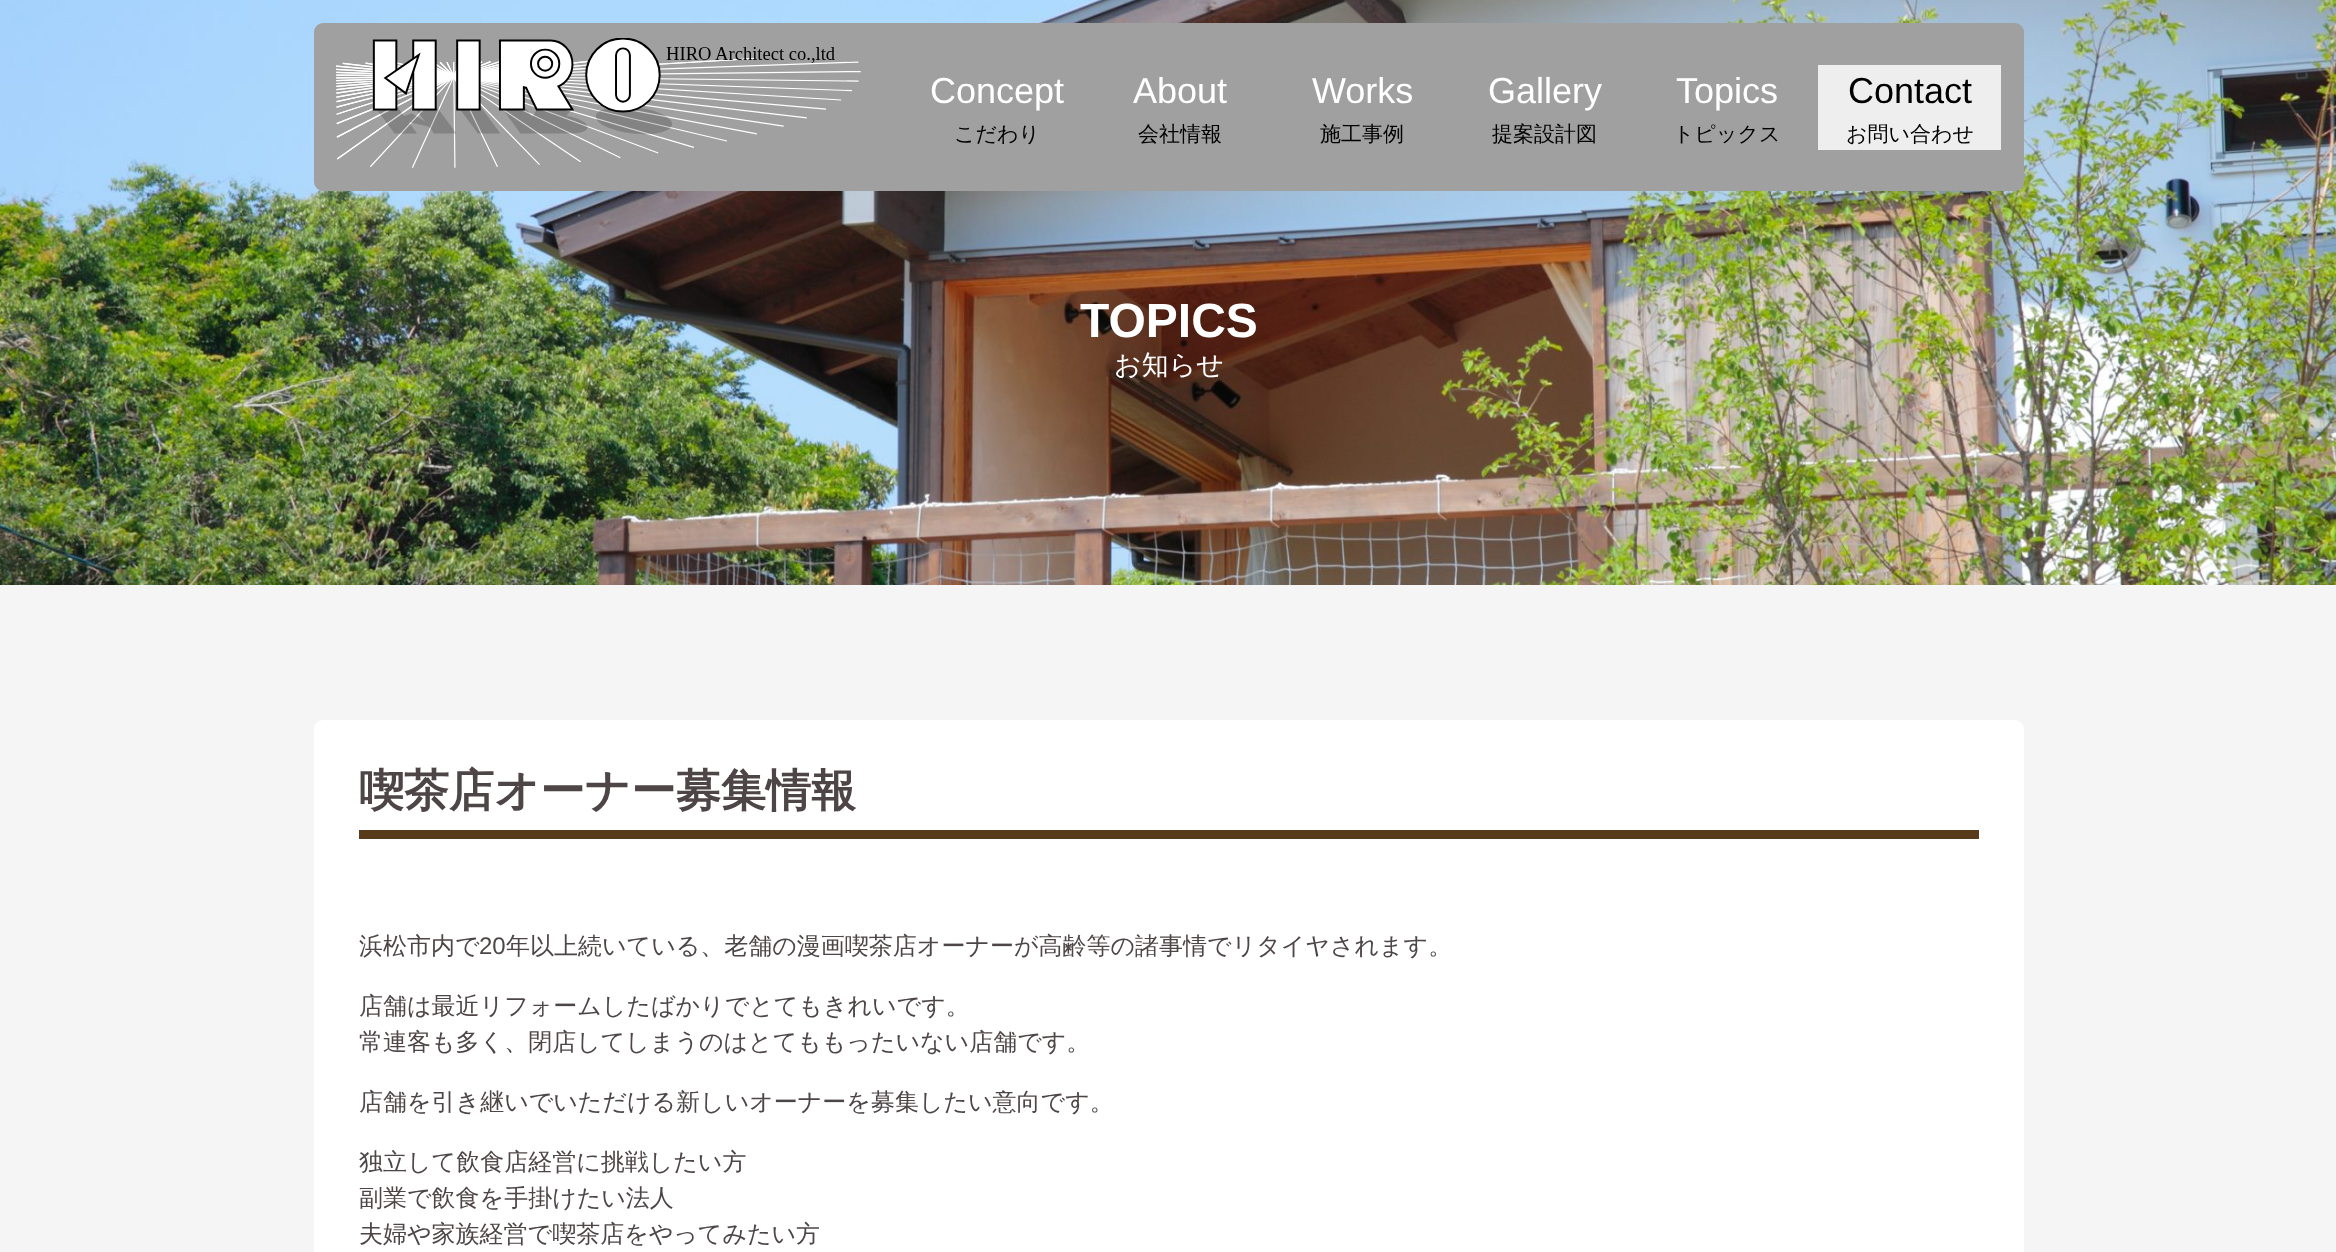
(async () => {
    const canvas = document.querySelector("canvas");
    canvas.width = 2336;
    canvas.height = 1252;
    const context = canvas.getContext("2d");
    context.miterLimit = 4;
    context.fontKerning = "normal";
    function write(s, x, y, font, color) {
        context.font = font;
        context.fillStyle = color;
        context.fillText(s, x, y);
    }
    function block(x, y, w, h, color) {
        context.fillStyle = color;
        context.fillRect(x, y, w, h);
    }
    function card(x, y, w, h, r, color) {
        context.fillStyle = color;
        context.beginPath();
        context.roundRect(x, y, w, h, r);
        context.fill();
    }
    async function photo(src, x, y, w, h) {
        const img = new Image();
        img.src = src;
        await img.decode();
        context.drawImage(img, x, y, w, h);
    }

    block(0, 0, 2336, 1252, "rgb(245, 245, 245)");
    await photo("media/2.png", 0, 0, 2336, 585);
    card(314, 23, 1710, 168, 9, "rgb(160, 160, 160)");
    await photo("media/1.png", 336, 38, 525, 130);
    write("Concept", 930, 103, "36px Liberation Sans", "rgb(255, 255, 255)");
    write("こだわり", 954, 141, "500 21px WenQuanYi Zen Hei", "rgb(0, 0, 0)");
    write("About", 1133, 103, "36px Liberation Sans", "rgb(255, 255, 255)");
    write("会社情報", 1138, 141, "500 21px WenQuanYi Zen Hei", "rgb(0, 0, 0)");
    write("Works", 1312, 103, "36px Liberation Sans", "rgb(255, 255, 255)");
    write("施工事例", 1320, 141, "500 21px WenQuanYi Zen Hei", "rgb(0, 0, 0)");
    write("Gallery", 1488, 103, "36px Liberation Sans", "rgb(255, 255, 255)");
    write("提案設計図", 1492, 141, "500 21px WenQuanYi Zen Hei", "rgb(0, 0, 0)");
    write("Topics", 1676, 103, "36px Liberation Sans", "rgb(255, 255, 255)");
    write("トピックス", 1673, 141, "500 21px WenQuanYi Zen Hei", "rgb(0, 0, 0)");
    block(1818, 65, 183, 85, "rgb(238, 238, 238)");
    write("Contact", 1848, 103, "36px Liberation Sans", "rgb(0, 0, 0)");
    write("お問い合わせ", 1846, 141, "500 21px WenQuanYi Zen Hei", "rgb(0, 0, 0)");
    write("TOPICS", 1080, 337, "bold 48px Liberation Sans", "rgb(255, 255, 255)");
    write("お知らせ", 1114, 374, "500 27px WenQuanYi Zen Hei", "rgb(255, 255, 255)");
    card(314, 720, 1710, 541, 9, "rgb(255, 255, 255)");
    block(359, 830, 1620, 9, "rgb(88, 59, 26)");
    write("喫茶店オーナー募集情報", 359, 806, "bold 45px WenQuanYi Zen Hei", "rgb(78, 70, 70)");
    write("浜松市内で", 359, 954, "500 24px WenQuanYi Zen Hei", "rgb(78, 70, 70)");
    write("20", 479, 954, "24px Liberation Sans", "rgb(78, 70, 70)");
    write("年以上続いている、老舗の漫画喫茶店オーナーが高齢等の諸事情でリタイヤされます。", 506, 954, "500 24px WenQuanYi Zen Hei", "rgb(78, 70, 70)");
    write("店舗は最近リフォームしたばかりでとてもきれいです。", 359, 1014, "500 24px WenQuanYi Zen Hei", "rgb(78, 70, 70)");
    write("常連客も多く、閉店してしまうのはとてももったいない店舗です。", 359, 1050, "500 24px WenQuanYi Zen Hei", "rgb(78, 70, 70)");
    write("店舗を引き継いでいただける新しいオーナーを募集したい意向です。", 359, 1110, "500 24px WenQuanYi Zen Hei", "rgb(78, 70, 70)");
    write("独立して飲食店経営に挑戦したい方", 359, 1170, "500 24px WenQuanYi Zen Hei", "rgb(78, 70, 70)");
    write("副業で飲食を手掛けたい法人", 359, 1206, "500 24px WenQuanYi Zen Hei", "rgb(78, 70, 70)");
    write("夫婦や家族経営で喫茶店をやってみたい方", 359, 1242, "500 24px WenQuanYi Zen Hei", "rgb(78, 70, 70)");
})();
